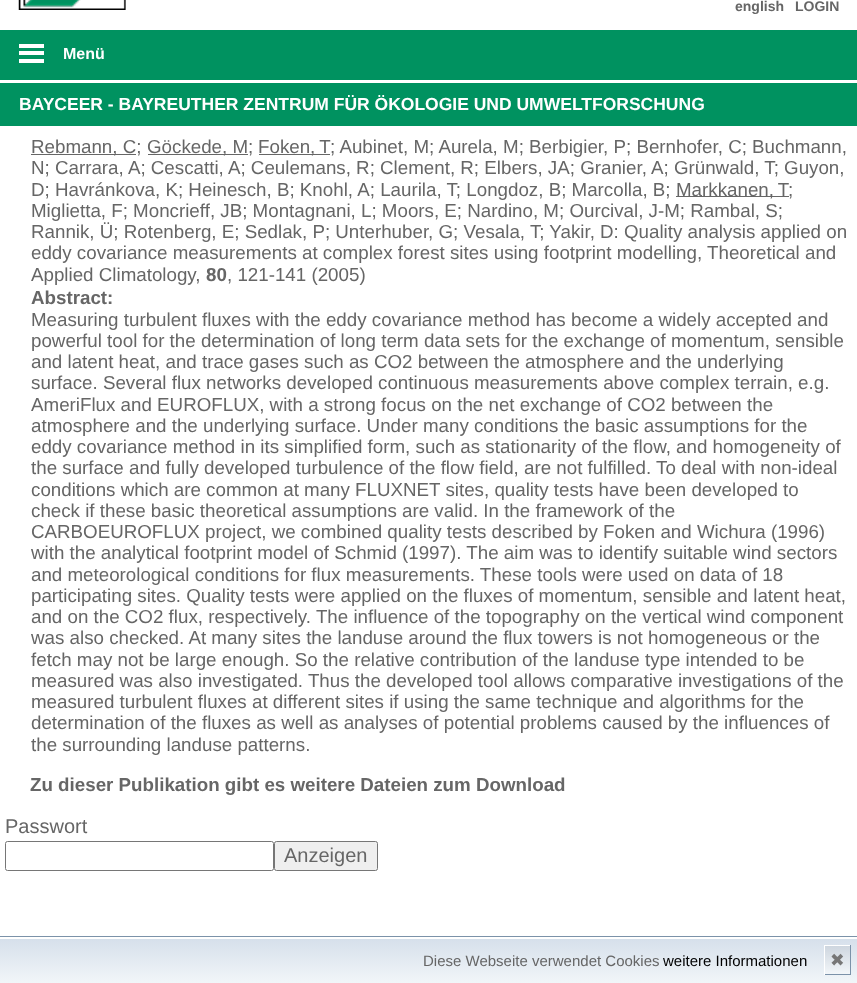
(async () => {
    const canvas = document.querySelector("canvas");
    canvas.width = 857;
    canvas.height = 983;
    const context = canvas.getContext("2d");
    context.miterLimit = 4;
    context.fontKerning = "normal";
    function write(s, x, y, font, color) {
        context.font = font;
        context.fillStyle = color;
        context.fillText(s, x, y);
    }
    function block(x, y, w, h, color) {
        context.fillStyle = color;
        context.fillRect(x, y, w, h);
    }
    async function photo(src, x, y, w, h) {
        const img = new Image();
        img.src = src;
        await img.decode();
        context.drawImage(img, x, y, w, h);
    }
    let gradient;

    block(0, 0, 857, 983, "rgb(255, 255, 255)");
    await photo("media/1.png", 18, 0, 108, 10);
    write("english", 735, 11, "bold 14px Liberation Sans", "rgb(102, 102, 102)");
    write("LOGIN", 795, 11, "bold 14px Liberation Sans", "rgb(102, 102, 102)");
    block(0, 30, 857, 50, "rgb(0, 146, 96)");
    block(19, 44, 25, 4, "rgb(255, 255, 255)");
    block(19, 51, 25, 4, "rgb(255, 255, 255)");
    write("Menü", 63, 59, "bold 16px Liberation Sans", "rgb(255, 255, 255)");
    block(19, 59, 25, 4, "rgb(255, 255, 255)");
    block(0, 83, 857, 43, "rgb(0, 146, 96)");
    write("BAYCEER - BAYREUTHER ZENTRUM FÜR ÖKOLOGIE UND UMWELTFORSCHUNG", 19, 110, "bold 17.5px Liberation Sans", "rgb(255, 255, 255)");
    block(31, 154, 105, 1, "rgb(102, 102, 102)");
    write("Rebmann, C;", 31, 153, "18.75px Liberation Sans", "rgb(102, 102, 102)");
    block(148, 154, 100, 1, "rgb(102, 102, 102)");
    write("Göckede, M;", 147, 153, "18.75px Liberation Sans", "rgb(102, 102, 102)");
    block(259, 154, 71, 1, "rgb(102, 102, 102)");
    context.wordSpacing = "-1px";
    write("Foken, T", 258, 153, "18.75px Liberation Sans", "rgb(102, 102, 102)");
    context.wordSpacing = "0px";
    write("; Aubinet, M; Aurela, M; Berbigier, P; Bernhofer, C; Buchmann,", 330, 153, "18.75px Liberation Sans", "rgb(102, 102, 102)");
    write("N; Carrara, A; Cescatti, A; Ceulemans, R; Clement, R; Elbers, JA; Granier, A; Grünwald, T; Guyon,", 31, 174, "18.75px Liberation Sans", "rgb(102, 102, 102)");
    write("D; Havránkova, K; Heinesch, B; Knohl, A; Laurila, T; Longdoz, B; Marcolla, B;", 31, 196, "18.75px Liberation Sans", "rgb(102, 102, 102)");
    block(676, 196, 113, 1, "rgb(102, 102, 102)");
    context.wordSpacing = "-1px";
    write("Markkanen, T", 676, 196, "18.75px Liberation Sans", "rgb(102, 102, 102)");
    context.wordSpacing = "0px";
    write(";", 788, 196, "18.75px Liberation Sans", "rgb(102, 102, 102)");
    write("Miglietta, F; Moncrieff, JB; Montagnani, L; Moors, E; Nardino, M; Ourcival, J-M; Rambal, S;", 31, 217, "18.75px Liberation Sans", "rgb(102, 102, 102)");
    write("Rannik, Ü; Rotenberg, E; Sedlak, P; Unterhuber, G; Vesala, T; Yakir, D: Quality analysis applied on", 31, 238, "18.75px Liberation Sans", "rgb(102, 102, 102)");
    write("eddy covariance measurements at complex forest sites using footprint modelling, Theoretical and", 31, 259, "18.75px Liberation Sans", "rgb(102, 102, 102)");
    write("Applied Climatology,", 31, 281, "18.75px Liberation Sans", "rgb(102, 102, 102)");
    write("80", 206, 281, "bold 18.75px Liberation Sans", "rgb(102, 102, 102)");
    write(", 121-141 (2005)", 227, 281, "18.75px Liberation Sans", "rgb(102, 102, 102)");
    write("Abstract:", 31, 304, "bold 18.75px Liberation Sans", "rgb(102, 102, 102)");
    write("Measuring turbulent fluxes with the eddy covariance method has become a widely accepted and", 31, 326, "18.75px Liberation Sans", "rgb(102, 102, 102)");
    write("powerful tool for the determination of long term data sets for the exchange of momentum, sensible", 31, 347, "18.75px Liberation Sans", "rgb(102, 102, 102)");
    write("and latent heat, and trace gases such as CO2 between the atmosphere and the underlying", 31, 368, "18.75px Liberation Sans", "rgb(102, 102, 102)");
    write("surface. Several flux networks developed continuous measurements above complex terrain, e.g.", 31, 389, "18.75px Liberation Sans", "rgb(102, 102, 102)");
    write("AmeriFlux and EUROFLUX, with a strong focus on the net exchange of CO2 between the", 31, 411, "18.75px Liberation Sans", "rgb(102, 102, 102)");
    write("atmosphere and the underlying surface. Under many conditions the basic assumptions for the", 31, 432, "18.75px Liberation Sans", "rgb(102, 102, 102)");
    write("eddy covariance method in its simplified form, such as stationarity of the flow, and homogeneity of", 31, 453, "18.75px Liberation Sans", "rgb(102, 102, 102)");
    write("the surface and fully developed turbulence of the flow field, are not fulfilled. To deal with non-ideal", 31, 474, "18.75px Liberation Sans", "rgb(102, 102, 102)");
    write("conditions which are common at many FLUXNET sites, quality tests have been developed to", 31, 496, "18.75px Liberation Sans", "rgb(102, 102, 102)");
    write("check if these basic theoretical assumptions are valid. In the framework of the", 31, 517, "18.75px Liberation Sans", "rgb(102, 102, 102)");
    write("CARBOEUROFLUX project, we combined quality tests described by Foken and Wichura (1996)", 31, 538, "18.75px Liberation Sans", "rgb(102, 102, 102)");
    write("with the analytical footprint model of Schmid (1997). The aim was to identify suitable wind sectors", 31, 559, "18.75px Liberation Sans", "rgb(102, 102, 102)");
    write("and meteorological conditions for flux measurements. These tools were used on data of 18", 31, 581, "18.75px Liberation Sans", "rgb(102, 102, 102)");
    write("participating sites. Quality tests were applied on the fluxes of momentum, sensible and latent heat,", 31, 602, "18.75px Liberation Sans", "rgb(102, 102, 102)");
    write("and on the CO2 flux, respectively. The influence of the topography on the vertical wind component", 31, 623, "18.75px Liberation Sans", "rgb(102, 102, 102)");
    write("was also checked. At many sites the landuse around the flux towers is not homogeneous or the", 31, 644, "18.75px Liberation Sans", "rgb(102, 102, 102)");
    write("fetch may not be large enough. So the relative contribution of the landuse type intended to be", 31, 666, "18.75px Liberation Sans", "rgb(102, 102, 102)");
    write("measured was also investigated. Thus the developed tool allows comparative investigations of the", 31, 687, "18.75px Liberation Sans", "rgb(102, 102, 102)");
    write("measured turbulent fluxes at different sites if using the same technique and algorithms for the", 31, 708, "18.75px Liberation Sans", "rgb(102, 102, 102)");
    write("determination of the fluxes as well as analyses of potential problems caused by the influences of", 31, 729, "18.75px Liberation Sans", "rgb(102, 102, 102)");
    write("the surrounding landuse patterns.", 31, 751, "18.75px Liberation Sans", "rgb(102, 102, 102)");
    write("Zu dieser Publikation gibt es weitere Dateien zum Download", 30, 791, "bold 18.75px Liberation Sans", "rgb(102, 102, 102)");
    write("Passwort", 5, 833, "20px Liberation Sans", "rgb(102, 102, 102)");
    context.beginPath();
    context.roundRect(5.5, 841.5, 268, 29, 2);
    context.strokeStyle = "rgb(118, 118, 118)";
    context.stroke();
    context.fillStyle = "rgb(239, 239, 239)";
    context.beginPath();
    context.roundRect(274.5, 841.5, 103, 29, 2);
    context.fill();
    context.stroke();
    write("Anzeigen", 284, 862, "20px Liberation Sans", "rgb(102, 102, 102)");
    gradient = context.createLinearGradient(429, 939, 429, 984);
    gradient.addColorStop(0, "rgb(214, 224, 235)");
    gradient.addColorStop(1, "rgb(242, 246, 249)");
    context.fillStyle = gradient;
    context.fillRect(0, 939, 857, 44);
    context.strokeStyle = "rgb(123, 146, 169)";
    context.strokeRect(-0.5, 936.5, 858, 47);
    write("Diese Webseite verwendet Cookies", 423, 966, "15px Liberation Sans", "rgb(102, 102, 102)");
    write("weitere Informationen", 663, 966, "15px Liberation Sans", "rgb(0, 0, 0)");
    gradient = context.createLinearGradient(838, 946, 838, 974);
    gradient.addColorStop(0, "rgb(206, 214, 223)");
    gradient.addColorStop(1, "rgb(242, 246, 249)");
    context.fillStyle = gradient;
    context.fillRect(825, 946, 25, 28);
    block(824, 945, 27, 1, "rgb(255, 255, 255)");
    block(850, 945, 1, 30, "rgb(123, 146, 169)");
    block(824, 974, 27, 1, "rgb(123, 146, 169)");
    block(824, 945, 1, 30, "rgb(255, 255, 255)");
    write("✖", 830, 966, "17.5px DejaVu Sans", "rgb(119, 119, 119)");
})();
